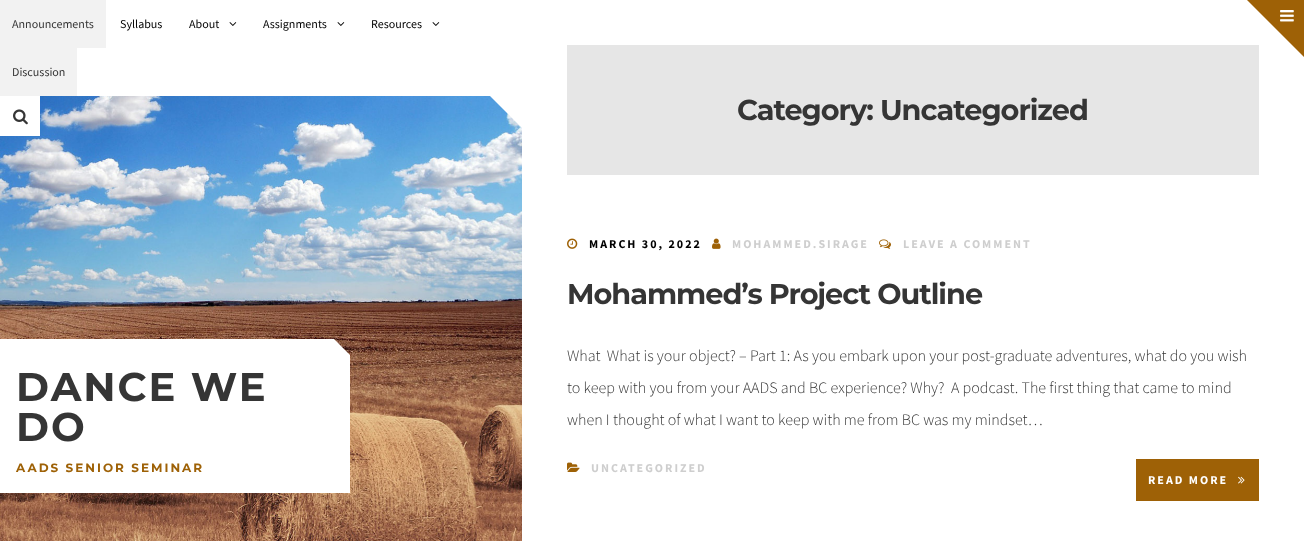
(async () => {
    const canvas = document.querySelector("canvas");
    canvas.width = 1304;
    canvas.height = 541;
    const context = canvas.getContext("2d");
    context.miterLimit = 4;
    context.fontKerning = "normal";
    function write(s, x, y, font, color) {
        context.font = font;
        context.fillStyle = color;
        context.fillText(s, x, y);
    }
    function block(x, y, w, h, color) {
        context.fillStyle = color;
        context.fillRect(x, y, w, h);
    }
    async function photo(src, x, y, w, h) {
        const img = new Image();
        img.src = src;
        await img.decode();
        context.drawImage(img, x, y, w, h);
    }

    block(0, 0, 1304, 541, "rgb(255, 255, 255)");
    await photo("media/1.png", 0, 96, 522, 445);
    block(0, 0, 106, 48, "rgb(242, 242, 242)");
    write("Announcements", 12, 28, "12px Source Sans Pro", "rgb(53, 53, 53)");
    write("Syllabus", 120, 28, "12px Source Sans Pro", "rgb(0, 0, 0)");
    write("About", 189, 28, "12px Source Sans Pro", "rgb(0, 0, 0)");
    await photo("media/2.png", 229, 22, 8, 4);
    write("Assignments", 263, 28, "12px Source Sans Pro", "rgb(0, 0, 0)");
    await photo("media/2.png", 337, 22, 8, 4);
    write("Resources", 371, 28, "12px Source Sans Pro", "rgb(0, 0, 0)");
    await photo("media/2.png", 432, 22, 8, 4);
    block(0, 48, 77, 48, "rgb(242, 242, 242)");
    write("Discussion", 12, 76, "12px Source Sans Pro", "rgb(53, 53, 53)");
    context.fillStyle = "rgb(255, 255, 255)";
    context.beginPath();
    context.moveTo(490, 96);
    context.lineTo(522, 96);
    context.lineTo(522, 128);
    context.closePath();
    context.fill();
    block(0, 96, 40, 40, "rgb(255, 255, 255)");
    await photo("media/3.png", 13, 109, 15, 16);
    context.beginPath();
    context.moveTo(350, 355);
    context.lineTo(0, 355);
    context.lineTo(0, 339);
    context.lineTo(334, 339);
    context.closePath();
    context.fill();
    block(0, 355, 350, 138, "rgb(255, 255, 255)");
    context.letterSpacing = "2px";
    write("DANCE WE", 16, 401, "bold 40px Montserrat", "rgb(53, 53, 53)");
    write("DO", 16, 441, "bold 40px Montserrat", "rgb(53, 53, 53)");
    write("AADS SENIOR SEMINAR", 16, 472, "bold 12px Montserrat", "rgb(158, 97, 6)");
    block(567, 45, 692, 130, "rgb(230, 230, 230)");
    context.fillStyle = "rgb(158, 97, 6)";
    context.beginPath();
    context.moveTo(1304, -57);
    context.lineTo(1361, 0);
    context.lineTo(1304, 57);
    context.lineTo(1247, 0);
    context.closePath();
    context.fill();
    await photo("media/4.png", 1280, 10, 14, 12);
    context.letterSpacing = "-1px";
    write("Category: Uncategorized", 737, 120, "bold 28.75px Montserrat", "rgb(53, 53, 53)");
    await photo("media/5.png", 567, 238, 11, 11);
    context.letterSpacing = "2px";
    write("MARCH 30, 2022", 589, 248, "bold 12px Source Sans Pro", "rgb(0, 0, 0)");
    await photo("media/6.png", 712, 238, 9, 11);
    write("MOHAMMED.SIRAGE", 732, 248, "bold 12px Source Sans Pro", "rgb(206, 206, 206)");
    await photo("media/7.png", 879, 239, 12, 10);
    write("LEAVE A COMMENT", 903, 248, "bold 12px Source Sans Pro", "rgb(206, 206, 206)");
    context.letterSpacing = "-1px";
    write("Mohammed’s Project Outline", 567, 304, "bold 28.75px Montserrat", "rgb(53, 53, 53)");
    context.letterSpacing = "0px";
    write("What  What is your object? – Part 1: As you embark upon your post-graduate adventures, what do you wish", 567, 361, "300 16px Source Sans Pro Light", "rgb(53, 53, 53)");
    write("to keep with you from your AADS and BC experience? Why?  A podcast. The first thing that came to mind", 567, 393, "300 16px Source Sans Pro Light", "rgb(53, 53, 53)");
    write("when I thought of what I want to keep with me from BC was my mindset…", 567, 425, "300 16px Source Sans Pro Light", "rgb(53, 53, 53)");
    await photo("media/8.png", 567, 462, 13, 10);
    context.letterSpacing = "2px";
    write("UNCATEGORIZED", 591, 472, "bold 12px Source Sans Pro", "rgb(206, 206, 206)");
    block(1136, 459, 123, 42, "rgb(158, 97, 6)");
    write("READ MORE", 1148, 484, "bold 12px Source Sans Pro", "rgb(255, 255, 255)");
    await photo("media/9.png", 1238, 476, 7, 8);
})();
